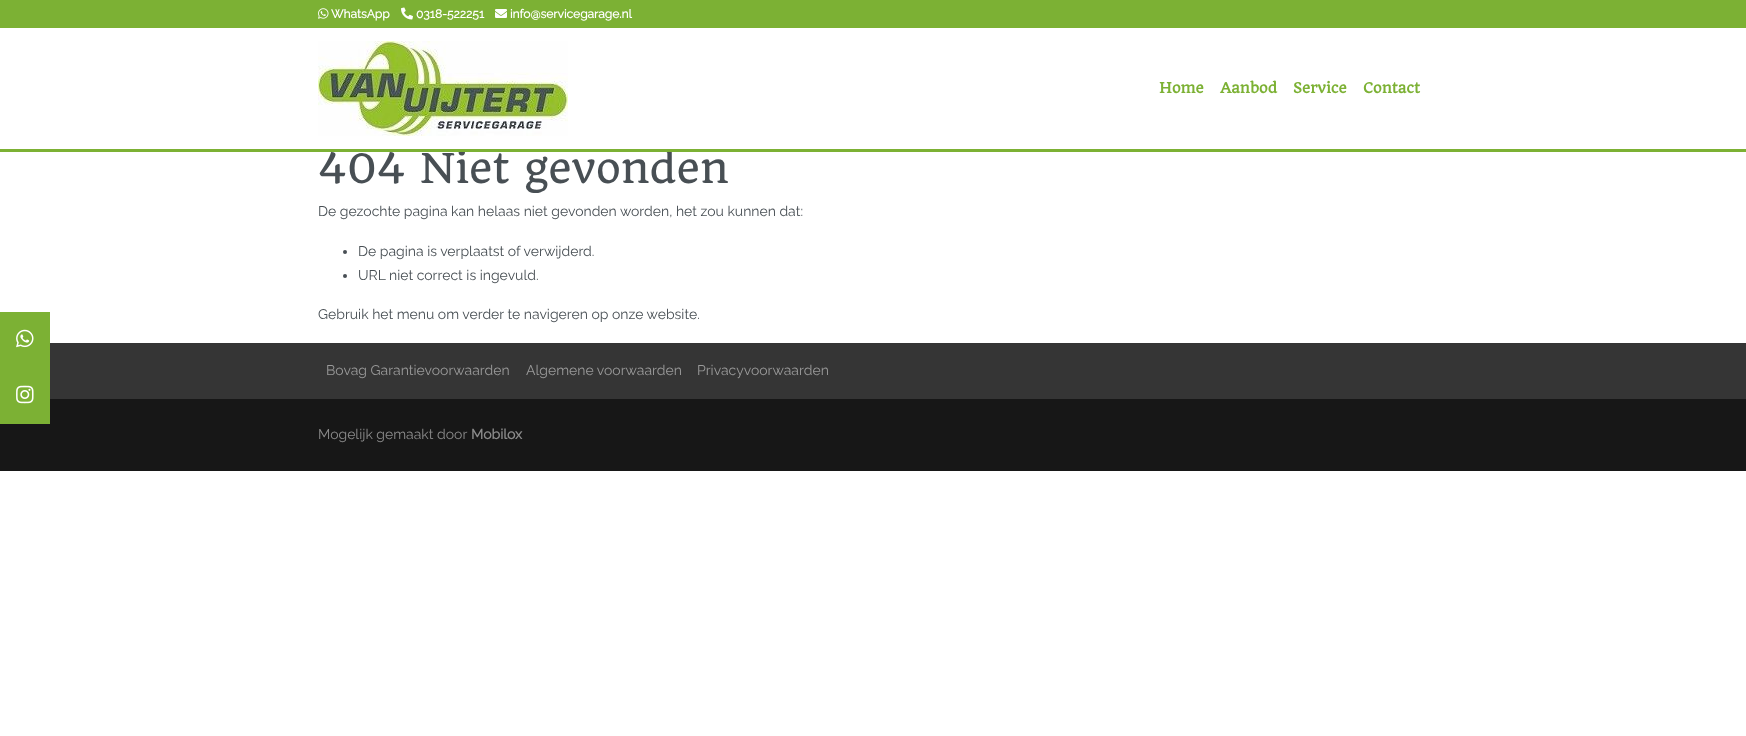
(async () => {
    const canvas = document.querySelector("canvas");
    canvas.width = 1746;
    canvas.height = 736;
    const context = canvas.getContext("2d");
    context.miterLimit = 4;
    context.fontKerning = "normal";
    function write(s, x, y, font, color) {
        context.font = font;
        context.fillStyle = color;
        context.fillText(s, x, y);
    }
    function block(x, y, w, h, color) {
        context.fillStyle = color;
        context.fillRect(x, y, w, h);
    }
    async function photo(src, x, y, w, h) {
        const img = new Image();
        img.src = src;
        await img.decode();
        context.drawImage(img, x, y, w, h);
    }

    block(0, 0, 1746, 736, "rgb(255, 255, 255)");
    block(0, 0, 1746, 28, "rgb(124, 177, 52)");
    await photo("media/1.png", 318, 8, 11, 11);
    write("WhatsApp", 331, 18, "bold 12px Raleway", "rgb(255, 255, 255)");
    await photo("media/2.png", 401, 7, 12, 13);
    write("0318-522251", 416, 18, "bold 12px Raleway", "rgb(255, 255, 255)");
    await photo("media/3.png", 495, 9, 12, 9);
    write("info@servicegarage.nl", 510, 18, "bold 12px Raleway", "rgb(255, 255, 255)");
    write("404 Niet gevonden", 318, 183, "40px Quando", "rgb(72, 79, 84)");
    block(666, 148, 5, 1, "rgb(255, 255, 255)");
    block(0, 149, 1746, 3, "rgb(124, 177, 52)");
    await photo("media/4.png", 318, 41, 250, 95);
    write("Home", 1159, 93, "bold 14px Quando", "rgb(124, 177, 52)");
    write("Aanbod", 1220, 93, "bold 14px Quando", "rgb(124, 177, 52)");
    write("Service", 1293, 93, "bold 14px Quando", "rgb(124, 177, 52)");
    write("Contact", 1363, 93, "bold 14px Quando", "rgb(124, 177, 52)");
    write("De gezochte pagina kan helaas niet gevonden worden, het zou kunnen dat:", 318, 216, "100 14px Raleway", "rgb(72, 79, 84)");
    context.beginPath();
    context.arc(345, 252, 2, 0, Math.PI * 2);
    context.fill();
    write("De pagina is verplaatst of verwijderd.", 358, 256, "100 14px Raleway", "rgb(72, 79, 84)");
    context.beginPath();
    context.arc(345, 276, 2, 0, Math.PI * 2);
    context.fill();
    write("URL niet correct is ingevuld.", 358, 280, "100 14px Raleway", "rgb(72, 79, 84)");
    write("Gebruik het menu om verder te navigeren op onze website.", 318, 319, "100 14px Raleway", "rgb(72, 79, 84)");
    block(0, 399, 1746, 72, "rgb(23, 23, 23)");
    block(0, 312, 50, 112, "rgb(124, 177, 52)");
    await photo("media/5.png", 16, 329, 18, 19);
    await photo("media/6.png", 16, 385, 18, 19);
    block(50, 343, 1696, 56, "rgb(53, 53, 53)");
    write("Bovag Garantievoorwaarden", 326, 375, "100 14px Raleway", "rgb(154, 154, 154)");
    write("Algemene voorwaarden", 526, 375, "100 14px Raleway", "rgb(154, 154, 154)");
    write("Privacyvoorwaarden", 697, 375, "100 14px Raleway", "rgb(154, 154, 154)");
    write("Mogelijk gemaakt door", 318, 439, "100 14px Raleway", "rgb(139, 139, 139)");
    write("Mobilox", 471, 439, "bold 14px Raleway", "rgb(139, 139, 139)");
})();
